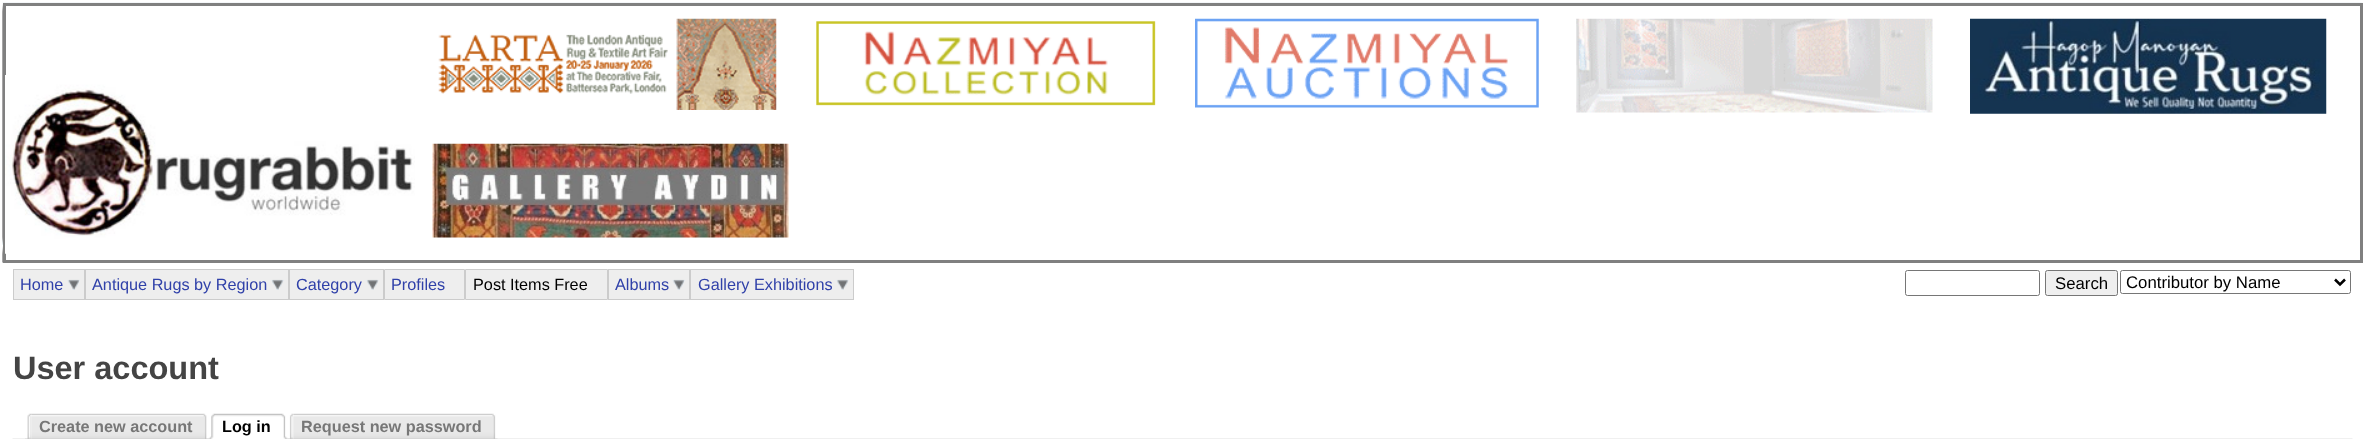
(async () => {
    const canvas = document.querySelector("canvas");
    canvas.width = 2365;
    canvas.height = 439;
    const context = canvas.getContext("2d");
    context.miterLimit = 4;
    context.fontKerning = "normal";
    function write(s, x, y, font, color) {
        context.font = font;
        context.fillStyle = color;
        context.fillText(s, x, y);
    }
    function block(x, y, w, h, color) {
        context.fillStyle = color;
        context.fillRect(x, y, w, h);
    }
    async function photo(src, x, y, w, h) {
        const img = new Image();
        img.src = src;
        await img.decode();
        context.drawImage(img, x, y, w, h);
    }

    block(0, 0, 2365, 439, "rgb(255, 255, 255)");
    await photo("media/1.png", 2, 2, 2361, 261);
    context.beginPath();
    context.rect(4.5, 4.5, 2357, 257);
    context.fill();
    context.strokeStyle = "rgb(128, 128, 128)";
    context.lineWidth = 3;
    context.stroke();
    await photo("media/2.png", 5, 75, 410, 179);
    await photo("media/3.png", 438, 18, 339, 92);
    await photo("media/4.png", 816, 21, 340, 85);
    await photo("media/5.png", 1195, 18, 344, 90);
    await photo("media/6.png", 1576, 18, 357, 95);
    await photo("media/7.png", 1970, 18, 357, 96);
    await photo("media/8.png", 432, 143, 357, 95);
    block(14, 270, 70, 29, "rgb(238, 238, 238)");
    await photo("media/9.png", 67, 279, 13, 11);
    context.strokeStyle = "rgb(204, 204, 204)";
    context.lineWidth = 1;
    context.strokeRect(13.5, 269.5, 71, 30);
    write("Home", 20, 290, "16.25px Liberation Sans", "rgb(48, 65, 169)");
    block(86, 270, 202, 29, "rgb(238, 238, 238)");
    await photo("media/10.png", 271, 279, 13, 11);
    context.strokeRect(85.5, 269.5, 203, 30);
    write("Antique Rugs by Region", 92, 290, "16.25px Liberation Sans", "rgb(48, 65, 169)");
    block(290, 270, 93, 29, "rgb(238, 238, 238)");
    await photo("media/11.png", 366, 279, 13, 11);
    context.strokeRect(289.5, 269.5, 94, 30);
    write("Category", 296, 290, "16.25px Liberation Sans", "rgb(48, 65, 169)");
    context.fillStyle = "rgb(238, 238, 238)";
    context.beginPath();
    context.rect(384.5, 269.5, 80, 30);
    context.fill();
    context.stroke();
    write("Profiles", 391, 290, "16.25px Liberation Sans", "rgb(48, 65, 169)");
    context.fillStyle = "rgb(238, 238, 238)";
    context.beginPath();
    context.rect(465.5, 269.5, 142, 30);
    context.fill();
    context.stroke();
    write("Post Items Free", 473, 290, "16.25px Liberation Sans", "rgb(0, 0, 0)");
    block(609, 270, 80, 29, "rgb(238, 238, 238)");
    await photo("media/12.png", 672, 279, 13, 11);
    context.strokeRect(608.5, 269.5, 81, 30);
    write("Albums", 615, 290, "16.25px Liberation Sans", "rgb(48, 65, 169)");
    block(691, 270, 162, 29, "rgb(238, 238, 238)");
    await photo("media/11.png", 836, 279, 13, 11);
    context.strokeRect(690.5, 269.5, 163, 30);
    write("Gallery Exhibitions", 698, 290, "16.25px Liberation Sans", "rgb(48, 65, 169)");
    context.beginPath();
    context.roundRect(1905.5, 270.5, 134, 25, 2);
    context.strokeStyle = "rgb(118, 118, 118)";
    context.stroke();
    context.fillStyle = "rgb(239, 239, 239)";
    context.beginPath();
    context.roundRect(2045.5, 270.5, 72, 25, 2);
    context.fill();
    context.stroke();
    write("Search", 2055, 289, "16.75px Liberation Sans", "rgb(0, 0, 0)");
    context.beginPath();
    context.roundRect(2120.5, 270.5, 230, 23, 2);
    context.stroke();
    context.beginPath();
    context.moveTo(2335, 279.5);
    context.lineTo(2340, 284.5);
    context.lineTo(2345, 279.5);
    context.strokeStyle = "rgb(0, 0, 0)";
    context.lineWidth = 2.5;
    context.stroke();
    write("Contributor by Name", 2126, 288, "16.75px Liberation Sans", "rgb(0, 0, 0)");
    write("User account", 13, 379, "bold 32.5px Liberation Sans", "rgb(68, 68, 68)");
    await photo("media/13.png", 12, 438, 2341, 1);
    await photo("media/14.png", 25, 413, 7, 26);
    await photo("media/15.png", 31, 413, 178, 26);
    write("Create new account", 39, 432, "bold 16.25px Liberation Sans", "rgb(119, 119, 119)");
    await photo("media/16.png", 208, 413, 7, 26);
    await photo("media/17.png", 215, 413, 73, 26);
    write("Log in", 222, 432, "bold 16.25px Liberation Sans", "rgb(0, 0, 0)");
    await photo("media/18.png", 288, 413, 6, 26);
    await photo("media/19.png", 294, 413, 204, 26);
    write("Request new password", 301, 432, "bold 16.25px Liberation Sans", "rgb(119, 119, 119)");
})();
